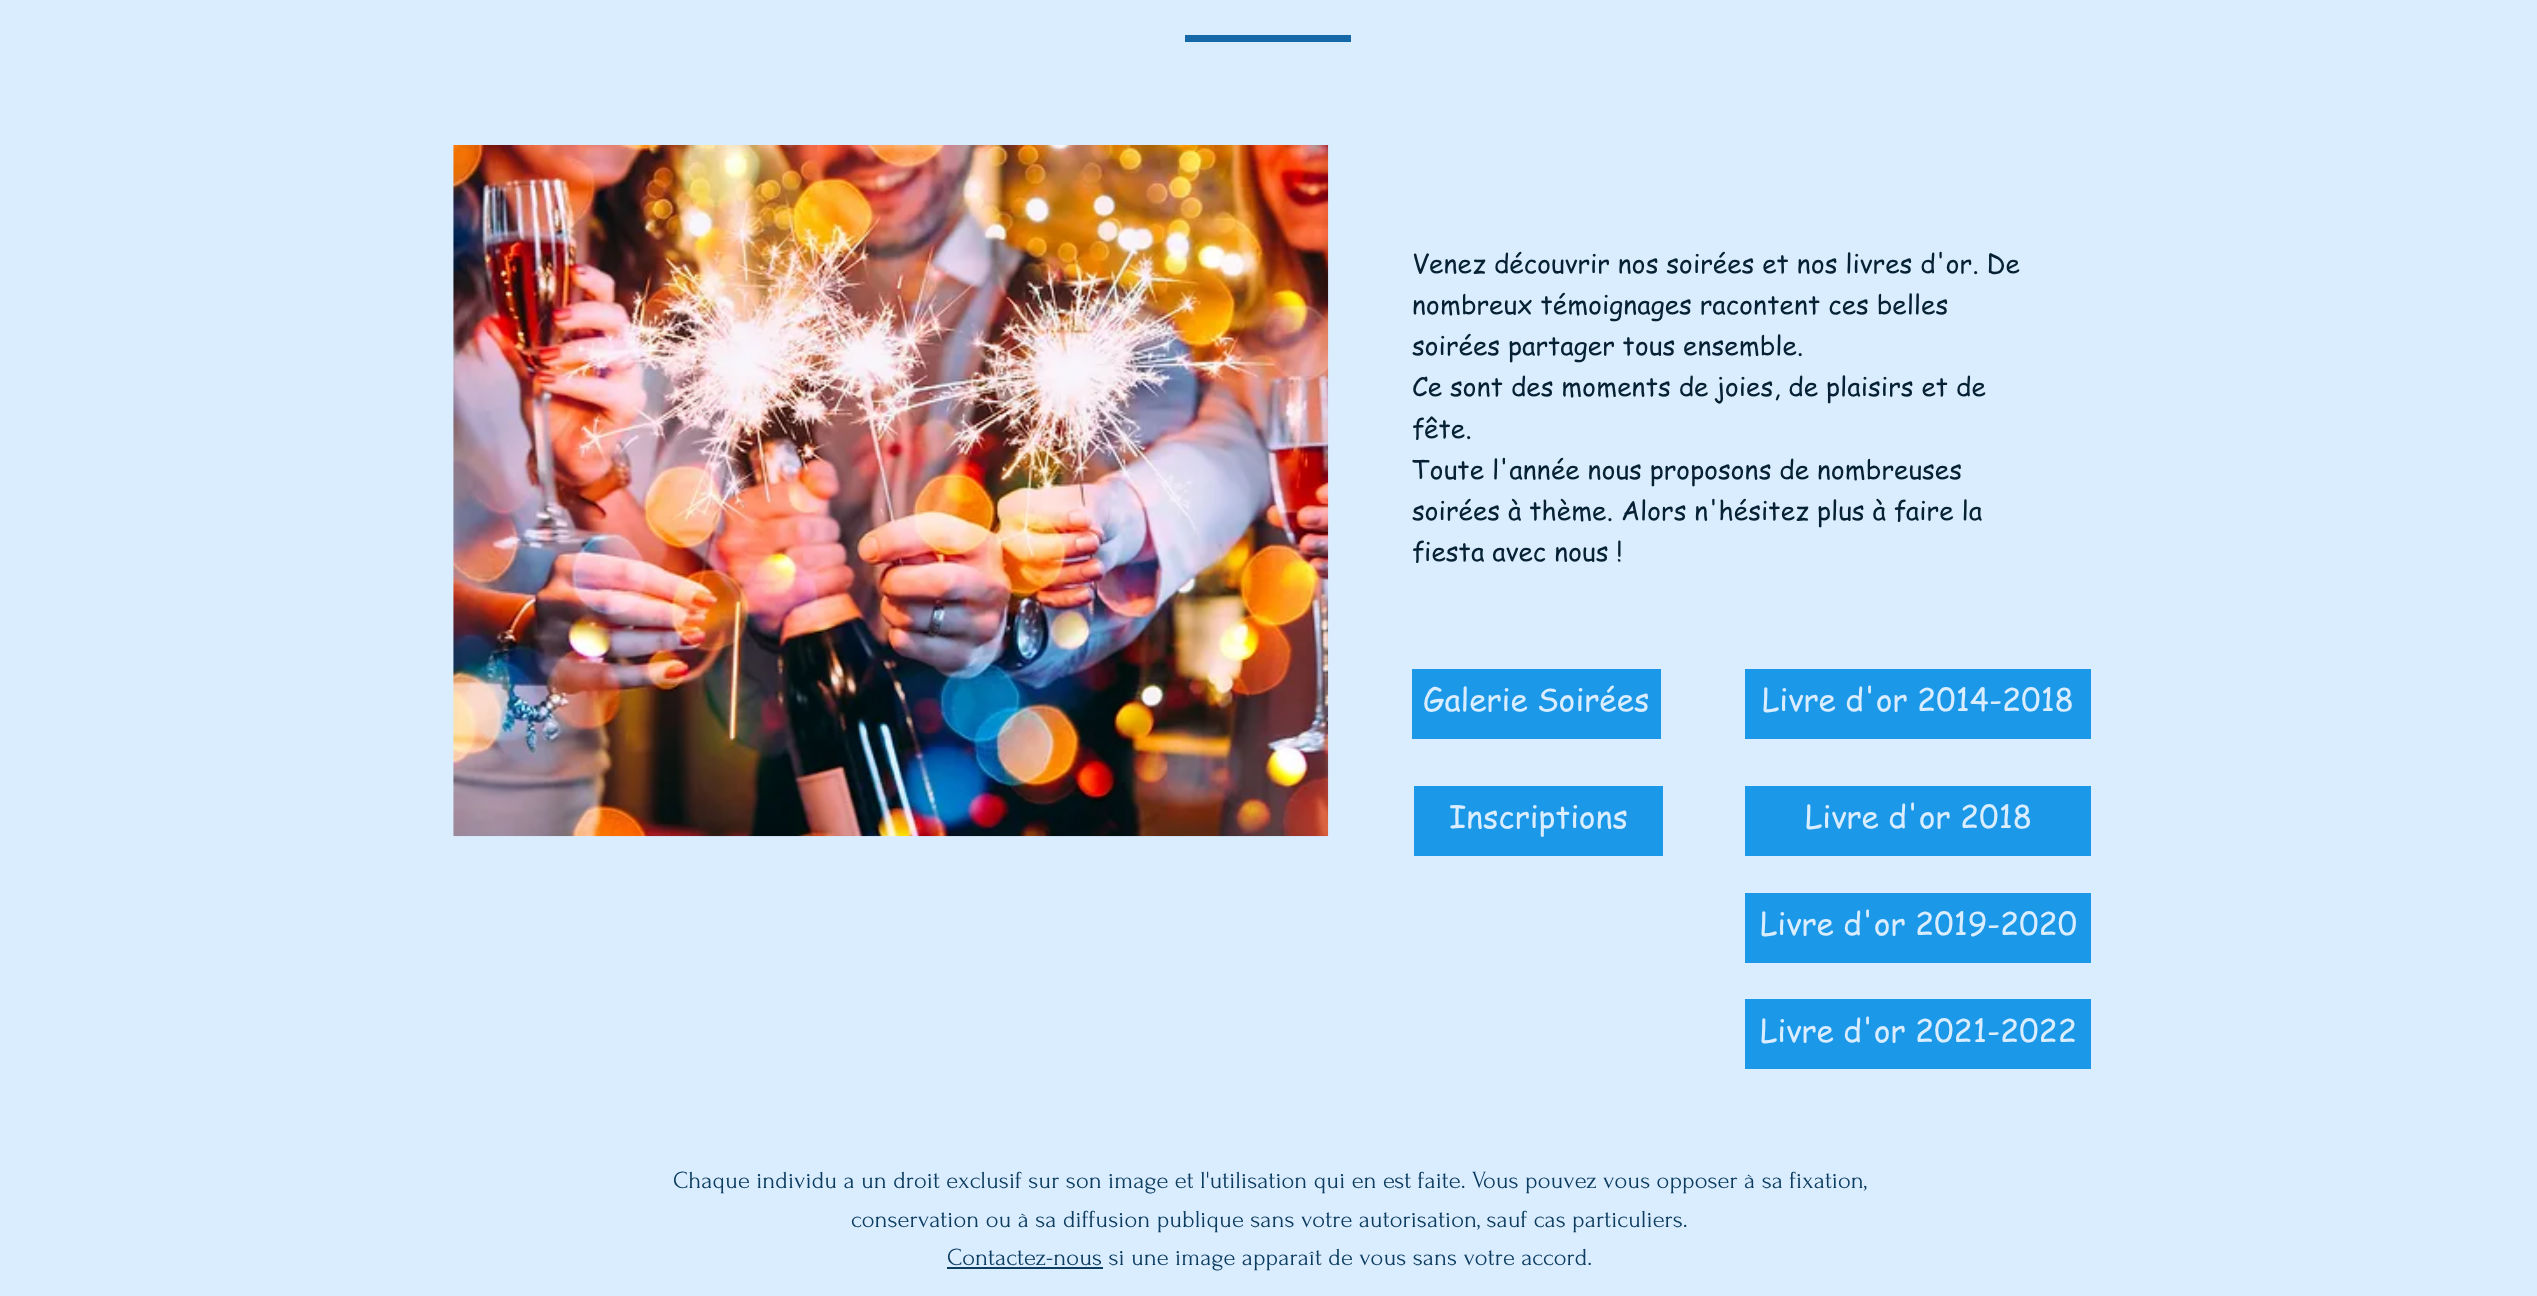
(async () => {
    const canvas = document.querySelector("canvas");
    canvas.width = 2537;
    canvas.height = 1296;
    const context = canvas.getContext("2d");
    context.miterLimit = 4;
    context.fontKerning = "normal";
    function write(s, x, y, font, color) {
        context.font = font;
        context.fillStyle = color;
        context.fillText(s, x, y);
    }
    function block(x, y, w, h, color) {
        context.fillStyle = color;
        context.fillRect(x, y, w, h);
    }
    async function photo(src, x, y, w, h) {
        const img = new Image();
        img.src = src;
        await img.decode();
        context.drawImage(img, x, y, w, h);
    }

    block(0, 0, 2537, 1296, "rgb(218, 237, 255)");
    block(1185, 35, 166, 7, "rgb(20, 104, 168)");
    await photo("media/1.png", 453, 145, 876, 692);
    write("Venez découvrir nos soirées et nos livres d'or. De", 1412, 273, "26.25px 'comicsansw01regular'", "rgb(6, 33, 52)");
    write("nombreux témoignages racontent ces belles", 1412, 314, "26.25px 'comicsansw01regular'", "rgb(6, 33, 52)");
    write("soirées partager tous ensemble.", 1412, 355, "26.25px 'comicsansw01regular'", "rgb(6, 33, 52)");
    write("Ce sont des moments de joies, de plaisirs et de", 1412, 396, "26.25px 'comicsansw01regular'", "rgb(6, 33, 52)");
    write("fête.", 1412, 438, "26.25px 'comicsansw01regular'", "rgb(6, 33, 52)");
    write("Toute l'année nous proposons de nombreuses", 1412, 479, "26.25px 'comicsansw01regular'", "rgb(6, 33, 52)");
    write("soirées à thème. Alors n'hésitez plus à faire la", 1412, 520, "26.25px 'comicsansw01regular'", "rgb(6, 33, 52)");
    write("fiesta avec nous !", 1412, 561, "26.25px 'comicsansw01regular'", "rgb(6, 33, 52)");
    block(1412, 669, 249, 70, "rgb(27, 153, 232)");
    write("Galerie Soirées", 1423, 711, "31.5px 'comicsansw01regular'", "rgb(218, 237, 255)");
    block(1745, 669, 346, 70, "rgb(27, 153, 232)");
    write("Livre d'or 2014-2018", 1762, 711, "31.5px 'comicsansw01regular'", "rgb(218, 237, 255)");
    block(1414, 786, 249, 70, "rgb(27, 153, 232)");
    write("Inscriptions", 1449, 828, "31.5px 'comicsansw01regular'", "rgb(218, 237, 255)");
    block(1745, 786, 346, 70, "rgb(27, 153, 232)");
    write("Livre d'or 2018", 1805, 828, "31.5px 'comicsansw01regular'", "rgb(218, 237, 255)");
    block(1745, 893, 346, 70, "rgb(27, 153, 232)");
    write("Livre d'or 2019-2020", 1760, 935, "31.5px 'comicsansw01regular'", "rgb(218, 237, 255)");
    block(1745, 999, 346, 70, "rgb(27, 153, 232)");
    write("Livre d'or 2021-2022", 1760, 1042, "31.5px 'comicsansw01regular'", "rgb(218, 237, 255)");
    write("Chaque individu a un droit exclusif sur son image et l'utilisation qui en est faite. Vous pouvez vous opposer à sa fixation,", 673, 1188, "24.5px Forum", "rgb(12, 60, 96)");
    write("conservation ou à sa diffusion publique sans votre autorisation, sauf cas particuliers.", 851, 1227, "24.5px Forum", "rgb(12, 60, 96)");
    block(947, 1267, 156, 2, "rgb(12, 60, 96)");
    write("Contactez-nous si une image apparaît de vous sans votre accord.", 947, 1265, "24.5px Forum", "rgb(12, 60, 96)");
})();
